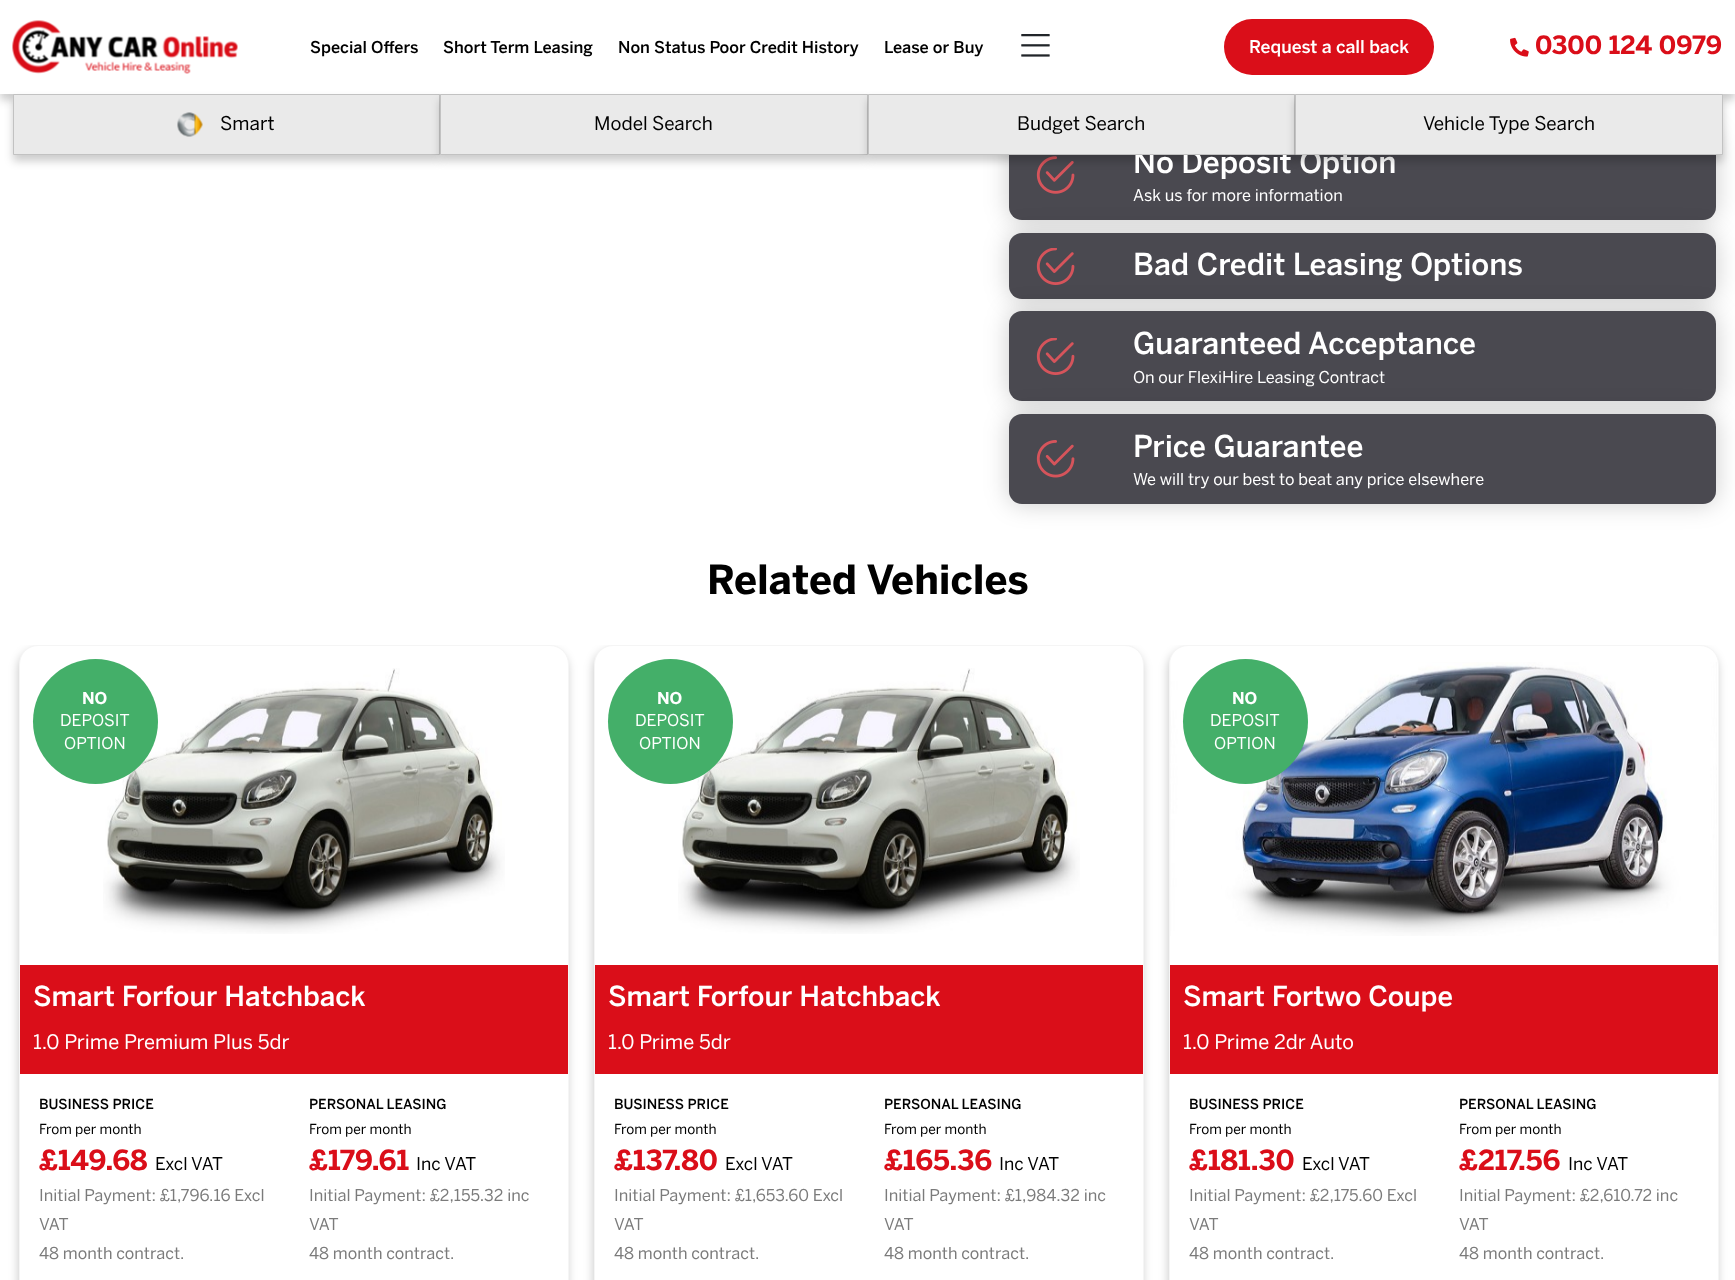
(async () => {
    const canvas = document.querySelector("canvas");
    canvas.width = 1735;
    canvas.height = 1280;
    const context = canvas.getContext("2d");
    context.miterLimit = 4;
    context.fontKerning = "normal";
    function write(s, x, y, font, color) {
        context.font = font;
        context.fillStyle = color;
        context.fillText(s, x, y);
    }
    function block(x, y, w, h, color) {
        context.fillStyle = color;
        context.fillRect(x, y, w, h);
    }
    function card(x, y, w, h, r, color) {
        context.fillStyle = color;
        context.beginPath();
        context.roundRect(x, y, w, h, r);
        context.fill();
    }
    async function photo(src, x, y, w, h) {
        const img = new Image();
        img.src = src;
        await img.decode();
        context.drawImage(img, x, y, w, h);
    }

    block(0, 0, 1735, 1280, "rgb(255, 255, 255)");
    context.fillStyle = "rgba(0, 0, 0, 0.2)";
    context.filter = "blur(4px)";
    context.beginPath();
    context.rect(0, 6, 1735, 94);
    context.fill();
    context.filter = "none";
    context.filter = "blur(12.5px)";
    context.beginPath();
    context.roundRect(1009, 130, 707, 90, 13);
    context.fill();
    context.filter = "none";
    block(0, 0, 1735, 94, "rgb(255, 255, 255)");
    await photo("media/1.png", 12, 20, 226, 54);
    write("Special Offers", 310, 53, "500 16.25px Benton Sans", "rgb(0, 0, 0)");
    write("Short Term Leasing", 443, 53, "500 16.25px Benton Sans", "rgb(0, 0, 0)");
    write("Non Status Poor Credit History", 618, 53, "500 16.25px Benton Sans", "rgb(0, 0, 0)");
    write("Lease or Buy", 884, 53, "500 16.25px Benton Sans", "rgb(0, 0, 0)");
    await photo("media/2.png", 1021, 34, 29, 23);
    card(1224, 19, 210, 56, 28, "rgb(218, 14, 25)");
    write("Request a call back", 1249, 53, "500 17.5px Benton Sans", "rgb(255, 255, 255)");
    await photo("media/3.png", 1510, 37, 19, 20);
    write("0300 124 0979", 1535, 54, "bold 25px Benton Sans", "rgb(218, 14, 25)");
    context.fillStyle = "rgba(0, 0, 0, 0.2)";
    context.filter = "blur(4px)";
    context.beginPath();
    context.rect(13, 100, 427, 61);
    context.fill();
    context.filter = "none";
    context.fillStyle = "rgb(234, 234, 234)";
    context.beginPath();
    context.rect(13.5, 94.5, 426, 60);
    context.fill();
    context.strokeStyle = "rgb(194, 194, 194)";
    context.stroke();
    await photo("media/4.png", 177, 112, 26, 25);
    write("Smart", 220, 130, "18.75px Benton Sans", "rgb(0, 0, 0)");
    context.fillStyle = "rgba(0, 0, 0, 0.2)";
    context.filter = "blur(4px)";
    context.beginPath();
    context.rect(440, 100, 428, 61);
    context.fill();
    context.filter = "none";
    context.fillStyle = "rgb(234, 234, 234)";
    context.beginPath();
    context.rect(440.5, 94.5, 427, 60);
    context.fill();
    context.stroke();
    write("Model Search", 594, 130, "18.75px Benton Sans", "rgb(0, 0, 0)");
    card(1009, 130, 707, 90, 13, "rgb(74, 73, 80)");
    await photo("media/5.png", 1036, 156, 39, 38);
    context.fillStyle = "rgba(0, 0, 0, 0.2)";
    context.filter = "blur(4px)";
    context.beginPath();
    context.rect(868, 100, 427, 61);
    context.fill();
    context.filter = "none";
    write("No Deposit Option", 1133, 173, "500 30px Benton Sans", "rgb(255, 255, 255)");
    context.fillStyle = "rgb(234, 234, 234)";
    context.beginPath();
    context.rect(868.5, 94.5, 426, 60);
    context.fill();
    context.stroke();
    write("Budget Search", 1017, 130, "18.75px Benton Sans", "rgb(0, 0, 0)");
    context.fillStyle = "rgba(0, 0, 0, 0.2)";
    context.filter = "blur(4px)";
    context.beginPath();
    context.rect(1295, 100, 428, 61);
    context.fill();
    context.filter = "none";
    context.fillStyle = "rgb(234, 234, 234)";
    context.beginPath();
    context.rect(1295.5, 94.5, 427, 60);
    context.fill();
    context.stroke();
    write("Vehicle Type Search", 1423, 130, "18.75px Benton Sans", "rgb(0, 0, 0)");
    write("Ask us for more information", 1133, 201, "16.25px Benton Sans", "rgb(255, 255, 255)");
    context.fillStyle = "rgba(0, 0, 0, 0.2)";
    context.filter = "blur(12.5px)";
    context.beginPath();
    context.roundRect(1009, 233, 707, 66, 13);
    context.fill();
    context.filter = "none";
    card(1009, 233, 707, 66, 13, "rgb(74, 73, 80)");
    context.fillStyle = "rgba(0, 0, 0, 0.2)";
    context.filter = "blur(12.5px)";
    context.beginPath();
    context.roundRect(1009, 311, 707, 90, 13);
    context.fill();
    context.filter = "none";
    await photo("media/6.png", 1036, 248, 39, 37);
    write("Bad Credit Leasing Options", 1133, 275, "500 30px Benton Sans", "rgb(255, 255, 255)");
    card(1009, 311, 707, 90, 13, "rgb(74, 73, 80)");
    await photo("media/7.png", 1036, 338, 39, 37);
    write("Guaranteed Acceptance", 1133, 354, "500 30px Benton Sans", "rgb(255, 255, 255)");
    write("On our FlexiHire Leasing Contract", 1133, 383, "16.25px Benton Sans", "rgb(255, 255, 255)");
    context.fillStyle = "rgba(0, 0, 0, 0.2)";
    context.filter = "blur(12.5px)";
    context.beginPath();
    context.roundRect(1009, 414, 707, 90, 13);
    context.fill();
    context.filter = "none";
    card(1009, 414, 707, 90, 13, "rgb(74, 73, 80)");
    await photo("media/8.png", 1036, 440, 39, 38);
    write("Price Guarantee", 1133, 457, "500 30px Benton Sans", "rgb(255, 255, 255)");
    write("We will try our best to beat any price elsewhere", 1133, 485, "16.25px Benton Sans", "rgb(255, 255, 255)");
    write("Related Vehicles", 707, 594, "bold 40px Benton Sans", "rgb(0, 0, 0)");
    context.save();
    context.beginPath();
    context.rect(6, 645, 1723, 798);
    context.clip();
    context.fillStyle = "rgba(0, 0, 0, 0.2)";
    context.filter = "blur(5px)";
    context.beginPath();
    context.roundRect(18, 650, 550, 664, 19);
    context.fill();
    context.filter = "none";
    context.restore();
    context.fillStyle = "rgb(255, 255, 255)";
    context.beginPath();
    context.roundRect(19.5, 645.5, 549, 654, 18.5);
    context.fill();
    context.strokeStyle = "rgb(245, 245, 245)";
    context.stroke();
    await photo("media/9.png", 103, 668, 402, 266);
    context.fillStyle = "rgb(68, 175, 105)";
    context.beginPath();
    context.arc(95.5, 721.5, 62.5, 0, Math.PI * 2);
    context.fill();
    write("NO", 82, 704, "bold 16.25px Benton Sans", "rgb(255, 255, 255)");
    write("DEPOSIT", 60, 726, "16.25px Benton Sans", "rgb(255, 255, 255)");
    write("OPTION", 64, 749, "16.25px Benton Sans", "rgb(255, 255, 255)");
    block(20, 965, 548, 109, "rgb(218, 14, 25)");
    write("Smart Forfour Hatchback", 33, 1006, "500 27.5px Benton Sans", "rgb(255, 255, 255)");
    write("1.0 Prime Premium Plus 5dr", 33, 1049, "20px Benton Sans", "rgb(255, 255, 255)");
    write("BUSINESS PRICE", 39, 1109, "500 13.75px Benton Sans", "rgb(0, 0, 0)");
    write("From per month", 39, 1134, "13.75px Benton Sans", "rgb(0, 0, 0)");
    write("£149.68", 39, 1170, "bold 27.5px Benton Sans", "rgb(218, 14, 25)");
    write("Excl VAT", 155, 1170, "17.5px Benton Sans", "rgb(0, 0, 0)");
    write("Initial Payment: £1,796.16 Excl", 39, 1201, "16.25px Benton Sans", "rgb(123, 123, 123)");
    write("VAT", 39, 1230, "16.25px Benton Sans", "rgb(123, 123, 123)");
    write("48 month contract.", 39, 1259, "16.25px Benton Sans", "rgb(123, 123, 123)");
    write("PERSONAL LEASING", 309, 1109, "500 13.75px Benton Sans", "rgb(0, 0, 0)");
    write("From per month", 309, 1134, "13.75px Benton Sans", "rgb(0, 0, 0)");
    write("£179.61", 309, 1170, "bold 27.5px Benton Sans", "rgb(218, 14, 25)");
    write("Inc VAT", 416, 1170, "17.5px Benton Sans", "rgb(0, 0, 0)");
    write("Initial Payment: £2,155.32 inc", 309, 1201, "16.25px Benton Sans", "rgb(123, 123, 123)");
    write("VAT", 309, 1230, "16.25px Benton Sans", "rgb(123, 123, 123)");
    write("48 month contract.", 309, 1259, "16.25px Benton Sans", "rgb(123, 123, 123)");
    context.save();
    context.beginPath();
    context.rect(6, 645, 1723, 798);
    context.clip();
    context.fillStyle = "rgba(0, 0, 0, 0.2)";
    context.filter = "blur(5px)";
    context.beginPath();
    context.roundRect(593, 650, 550, 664, 19);
    context.fill();
    context.filter = "none";
    context.restore();
    context.fillStyle = "rgb(255, 255, 255)";
    context.beginPath();
    context.roundRect(594.5, 645.5, 549, 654, 18.5);
    context.fill();
    context.stroke();
    await photo("media/10.png", 678, 668, 402, 266);
    context.fillStyle = "rgb(68, 175, 105)";
    context.beginPath();
    context.arc(670.5, 721.5, 62.5, 0, Math.PI * 2);
    context.fill();
    write("NO", 657, 704, "bold 16.25px Benton Sans", "rgb(255, 255, 255)");
    write("DEPOSIT", 635, 726, "16.25px Benton Sans", "rgb(255, 255, 255)");
    write("OPTION", 639, 749, "16.25px Benton Sans", "rgb(255, 255, 255)");
    block(595, 965, 548, 109, "rgb(218, 14, 25)");
    write("Smart Forfour Hatchback", 608, 1006, "500 27.5px Benton Sans", "rgb(255, 255, 255)");
    write("1.0 Prime 5dr", 608, 1049, "20px Benton Sans", "rgb(255, 255, 255)");
    write("BUSINESS PRICE", 614, 1109, "500 13.75px Benton Sans", "rgb(0, 0, 0)");
    write("From per month", 614, 1134, "13.75px Benton Sans", "rgb(0, 0, 0)");
    write("£137.80", 614, 1170, "bold 27.5px Benton Sans", "rgb(218, 14, 25)");
    write("Excl VAT", 725, 1170, "17.5px Benton Sans", "rgb(0, 0, 0)");
    write("Initial Payment: £1,653.60 Excl", 614, 1201, "16.25px Benton Sans", "rgb(123, 123, 123)");
    write("VAT", 614, 1230, "16.25px Benton Sans", "rgb(123, 123, 123)");
    write("48 month contract.", 614, 1259, "16.25px Benton Sans", "rgb(123, 123, 123)");
    write("PERSONAL LEASING", 884, 1109, "500 13.75px Benton Sans", "rgb(0, 0, 0)");
    write("From per month", 884, 1134, "13.75px Benton Sans", "rgb(0, 0, 0)");
    write("£165.36", 884, 1170, "bold 27.5px Benton Sans", "rgb(218, 14, 25)");
    write("Inc VAT", 999, 1170, "17.5px Benton Sans", "rgb(0, 0, 0)");
    write("Initial Payment: £1,984.32 inc", 884, 1201, "16.25px Benton Sans", "rgb(123, 123, 123)");
    write("VAT", 884, 1230, "16.25px Benton Sans", "rgb(123, 123, 123)");
    write("48 month contract.", 884, 1259, "16.25px Benton Sans", "rgb(123, 123, 123)");
    context.save();
    context.beginPath();
    context.rect(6, 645, 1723, 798);
    context.clip();
    context.fillStyle = "rgba(0, 0, 0, 0.2)";
    context.filter = "blur(5px)";
    context.beginPath();
    context.roundRect(1168, 650, 550, 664, 19);
    context.fill();
    context.filter = "none";
    context.restore();
    context.fillStyle = "rgb(255, 255, 255)";
    context.beginPath();
    context.roundRect(1169.5, 645.5, 549, 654, 18.5);
    context.fill();
    context.stroke();
    await photo("media/11.png", 1170, 662, 547, 274);
    context.fillStyle = "rgb(68, 175, 105)";
    context.beginPath();
    context.arc(1245.5, 721.5, 62.5, 0, Math.PI * 2);
    context.fill();
    write("NO", 1232, 704, "bold 16.25px Benton Sans", "rgb(255, 255, 255)");
    write("DEPOSIT", 1210, 726, "16.25px Benton Sans", "rgb(255, 255, 255)");
    write("OPTION", 1214, 749, "16.25px Benton Sans", "rgb(255, 255, 255)");
    block(1170, 965, 548, 109, "rgb(218, 14, 25)");
    write("Smart Fortwo Coupe", 1183, 1006, "500 27.5px Benton Sans", "rgb(255, 255, 255)");
    write("1.0 Prime 2dr Auto", 1183, 1049, "20px Benton Sans", "rgb(255, 255, 255)");
    write("BUSINESS PRICE", 1189, 1109, "500 13.75px Benton Sans", "rgb(0, 0, 0)");
    write("From per month", 1189, 1134, "13.75px Benton Sans", "rgb(0, 0, 0)");
    write("£181.30", 1189, 1170, "bold 27.5px Benton Sans", "rgb(218, 14, 25)");
    write("Excl VAT", 1302, 1170, "17.5px Benton Sans", "rgb(0, 0, 0)");
    write("Initial Payment: £2,175.60 Excl", 1189, 1201, "16.25px Benton Sans", "rgb(123, 123, 123)");
    write("VAT", 1189, 1230, "16.25px Benton Sans", "rgb(123, 123, 123)");
    write("48 month contract.", 1189, 1259, "16.25px Benton Sans", "rgb(123, 123, 123)");
    write("PERSONAL LEASING", 1459, 1109, "500 13.75px Benton Sans", "rgb(0, 0, 0)");
    write("From per month", 1459, 1134, "13.75px Benton Sans", "rgb(0, 0, 0)");
    write("£217.56", 1459, 1170, "bold 27.5px Benton Sans", "rgb(218, 14, 25)");
    write("Inc VAT", 1568, 1170, "17.5px Benton Sans", "rgb(0, 0, 0)");
    write("Initial Payment: £2,610.72 inc", 1459, 1201, "16.25px Benton Sans", "rgb(123, 123, 123)");
    write("VAT", 1459, 1230, "16.25px Benton Sans", "rgb(123, 123, 123)");
    write("48 month contract.", 1459, 1259, "16.25px Benton Sans", "rgb(123, 123, 123)");
})();
